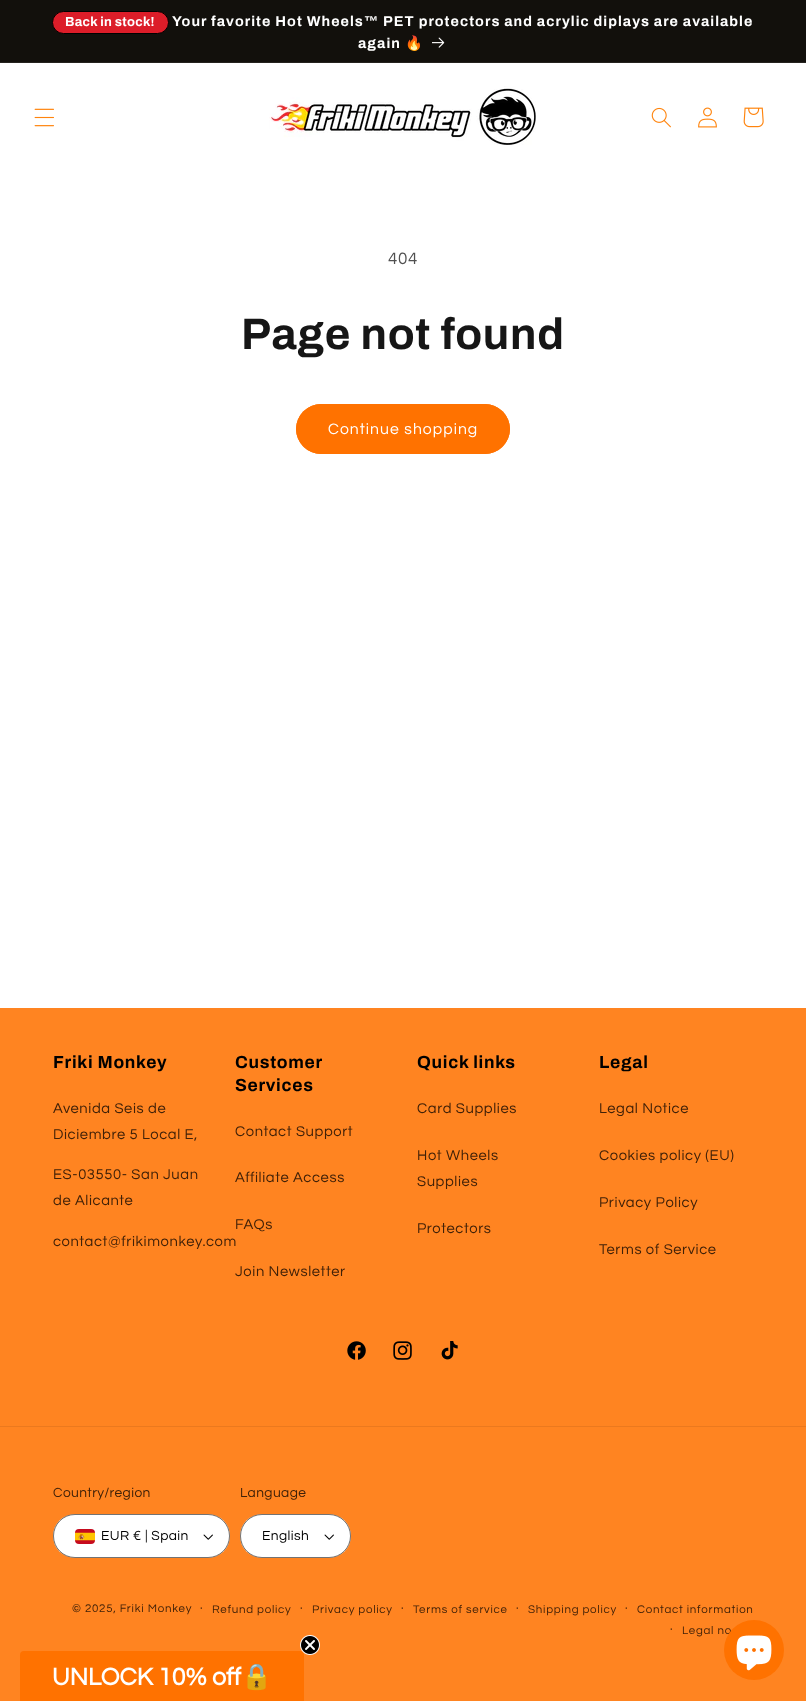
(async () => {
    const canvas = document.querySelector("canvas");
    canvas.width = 806;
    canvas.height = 1701;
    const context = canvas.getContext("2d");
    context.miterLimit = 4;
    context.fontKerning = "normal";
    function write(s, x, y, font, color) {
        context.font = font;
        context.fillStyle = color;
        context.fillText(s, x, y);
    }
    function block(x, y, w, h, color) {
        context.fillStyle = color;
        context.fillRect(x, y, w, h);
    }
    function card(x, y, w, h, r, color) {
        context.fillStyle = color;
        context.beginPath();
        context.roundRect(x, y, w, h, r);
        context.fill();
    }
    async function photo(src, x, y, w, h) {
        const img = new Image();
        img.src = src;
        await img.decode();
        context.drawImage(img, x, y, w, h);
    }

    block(0, 0, 806, 1701, "rgb(255, 255, 255)");
    block(0, 0, 806, 62, "rgb(18, 16, 12)");
    block(0, 62, 806, 1, "rgb(37, 35, 31)");
    context.fillStyle = "rgb(220, 29, 41)";
    context.beginPath();
    context.roundRect(52.5, 11.5, 116, 22, 11);
    context.fill();
    context.strokeStyle = "rgb(0, 0, 0)";
    context.stroke();
    context.letterSpacing = "0.25px";
    write("Back in stock!", 65, 26, "bold 13px Archivo", "rgb(255, 255, 255)");
    context.letterSpacing = "1.05px";
    write("Your favorite Hot Wheels", 172, 26, "bold 14.3px Archivo", "rgb(255, 255, 255)");
    write("™", 364, 26, "bold 14.3px Liberation Sans", "rgb(255, 255, 255)");
    write("PET protectors and acrylic diplays are available", 383, 26, "bold 14.3px Archivo", "rgb(255, 255, 255)");
    write("again", 358, 48, "bold 14.3px Archivo", "rgb(255, 255, 255)");
    write("🔥", 405, 48, "bold 14.3px Noto Color Emoji", "rgb(255, 255, 255)");
    await photo("media/1.png", 432, 37, 13, 11);
    await photo("media/2.png", 34, 108, 20, 19);
    await photo("media/3.png", 269, 86, 267, 59);
    await photo("media/4.png", 651, 107, 20, 21);
    await photo("media/5.png", 698, 107, 19, 21);
    await photo("media/6.png", 743, 107, 21, 21);
    context.letterSpacing = "0.6px";
    write("404", 388, 264, "17px Questrial", "rgb(80, 80, 80)");
    context.letterSpacing = "0.7px";
    write("Page not found", 241, 349, "bold 44px Archivo", "rgb(22, 22, 22)");
    card(296, 404, 214, 50, 25, "rgb(255, 114, 0)");
    context.beginPath();
    context.roundRect(296.5, 404.5, 213, 49, 24.5);
    context.strokeStyle = "rgb(255, 114, 0)";
    context.stroke();
    context.letterSpacing = "1.05px";
    write("Continue shopping", 328, 434, "15.75px Questrial", "rgb(255, 255, 255)");
    block(0, 1008, 806, 693, "rgb(255, 132, 33)");
    context.letterSpacing = "0.7px";
    write("Friki Monkey", 53, 1068, "bold 17.5px Archivo", "rgb(0, 0, 0)");
    context.letterSpacing = "0.6px";
    write("Avenida Seis de", 53, 1113, "14.75px Questrial", "rgb(64, 33, 8)");
    write("Diciembre 5 Local E,", 53, 1139, "14.75px Questrial", "rgb(64, 33, 8)");
    write("ES-03550- San Juan", 53, 1179, "14.75px Questrial", "rgb(64, 33, 8)");
    write("de Alicante", 53, 1205, "14.75px Questrial", "rgb(64, 33, 8)");
    write("contact@frikimonkey.com", 53, 1246, "14.75px Questrial", "rgb(64, 33, 8)");
    context.letterSpacing = "0.7px";
    write("Customer", 235, 1068, "bold 17.5px Archivo", "rgb(0, 0, 0)");
    write("Services", 235, 1091, "bold 17.5px Archivo", "rgb(0, 0, 0)");
    context.letterSpacing = "0.6px";
    write("Contact Support", 235, 1136, "14.75px Questrial", "rgb(64, 33, 8)");
    write("Affiliate Access", 235, 1182, "14.75px Questrial", "rgb(64, 33, 8)");
    write("FAQs", 235, 1229, "14.75px Questrial", "rgb(64, 33, 8)");
    write("Join Newsletter", 235, 1276, "14.75px Questrial", "rgb(64, 33, 8)");
    context.letterSpacing = "0.7px";
    write("Quick links", 417, 1068, "bold 17.5px Archivo", "rgb(0, 0, 0)");
    context.letterSpacing = "0.6px";
    write("Card Supplies", 417, 1113, "14.75px Questrial", "rgb(64, 33, 8)");
    write("Hot Wheels", 417, 1160, "14.75px Questrial", "rgb(64, 33, 8)");
    write("Supplies", 417, 1186, "14.75px Questrial", "rgb(64, 33, 8)");
    write("Protectors", 417, 1233, "14.75px Questrial", "rgb(64, 33, 8)");
    context.letterSpacing = "0.7px";
    write("Legal", 599, 1068, "bold 17.5px Archivo", "rgb(0, 0, 0)");
    context.letterSpacing = "0.6px";
    write("Legal Notice", 599, 1113, "14.75px Questrial", "rgb(64, 33, 8)");
    write("Cookies policy (EU)", 599, 1160, "14.75px Questrial", "rgb(64, 33, 8)");
    write("Privacy Policy", 599, 1207, "14.75px Questrial", "rgb(64, 33, 8)");
    write("Terms of Service", 599, 1254, "14.75px Questrial", "rgb(64, 33, 8)");
    await photo("media/7.png", 347, 1341, 19, 19);
    await photo("media/8.png", 393, 1341, 19, 19);
    await photo("media/9.png", 441, 1341, 17, 19);
    block(0, 1426, 806, 1, "rgb(235, 121, 30)");
    context.letterSpacing = "0.4px";
    write("Country/region", 53, 1497, "13.75px Questrial", "rgb(64, 33, 8)");
    card(53, 1514, 177, 44, 22, "rgb(255, 255, 255)");
    await photo("media/10.png", 75, 1529, 20, 15);
    await photo("media/11.png", 203, 1534, 10, 6);
    context.beginPath();
    context.roundRect(53.5, 1514.5, 176, 43, 21.5);
    context.strokeStyle = "rgba(0, 0, 0, 0.55)";
    context.stroke();
    write("EUR € | Spain", 101, 1540, "13.75px Questrial", "rgb(0, 0, 0)");
    write("Language", 240, 1497, "13.75px Questrial", "rgb(64, 33, 8)");
    card(240, 1514, 111, 44, 22, "rgb(255, 255, 255)");
    await photo("media/11.png", 324, 1534, 10, 6);
    context.beginPath();
    context.roundRect(240.5, 1514.5, 110, 43, 21.5);
    context.stroke();
    write("English", 262, 1540, "13.75px Questrial", "rgb(0, 0, 0)");
    context.letterSpacing = "0.75px";
    write("© 2025, Friki Monkey", 72, 1612, "11.5px Questrial", "rgb(64, 33, 8)");
    write("·", 200, 1612, "13px Questrial", "rgb(64, 33, 8)");
    write("Refund policy", 212, 1613, "11.5px Questrial", "rgb(64, 33, 8)");
    write("·", 300, 1612, "13px Questrial", "rgb(64, 33, 8)");
    write("Privacy policy", 312, 1613, "11.5px Questrial", "rgb(64, 33, 8)");
    write("·", 401, 1612, "13px Questrial", "rgb(64, 33, 8)");
    write("Terms of service", 413, 1613, "11.5px Questrial", "rgb(64, 33, 8)");
    write("·", 516, 1612, "13px Questrial", "rgb(64, 33, 8)");
    write("Shipping policy", 528, 1613, "11.5px Questrial", "rgb(64, 33, 8)");
    write("·", 625, 1612, "13px Questrial", "rgb(64, 33, 8)");
    write("Contact information", 637, 1613, "11.5px Questrial", "rgb(64, 33, 8)");
    write("·", 670, 1633, "13px Questrial", "rgb(64, 33, 8)");
    write("Legal no", 682, 1634, "11.5px Questrial", "rgb(64, 33, 8)");
    context.fillStyle = "rgb(255, 114, 0)";
    context.beginPath();
    context.roundRect(20, 1651, 284, 50, [4, 4, 0, 0]);
    context.fill();
    await photo("media/12.png", 300, 1635, 20, 20);
    context.letterSpacing = "0px";
    write("UNLOCK 10% off", 52, 1685, "bold 25px Questrial", "rgb(255, 255, 255)");
    write("🔒", 241, 1685, "bold 25px Noto Color Emoji", "rgb(255, 255, 255)");
    context.fillStyle = "rgb(255, 114, 0)";
    context.beginPath();
    context.arc(754, 1650, 30, 0, Math.PI * 2);
    context.fill();
    await photo("media/13.png", 736, 1635, 36, 36);
})();
